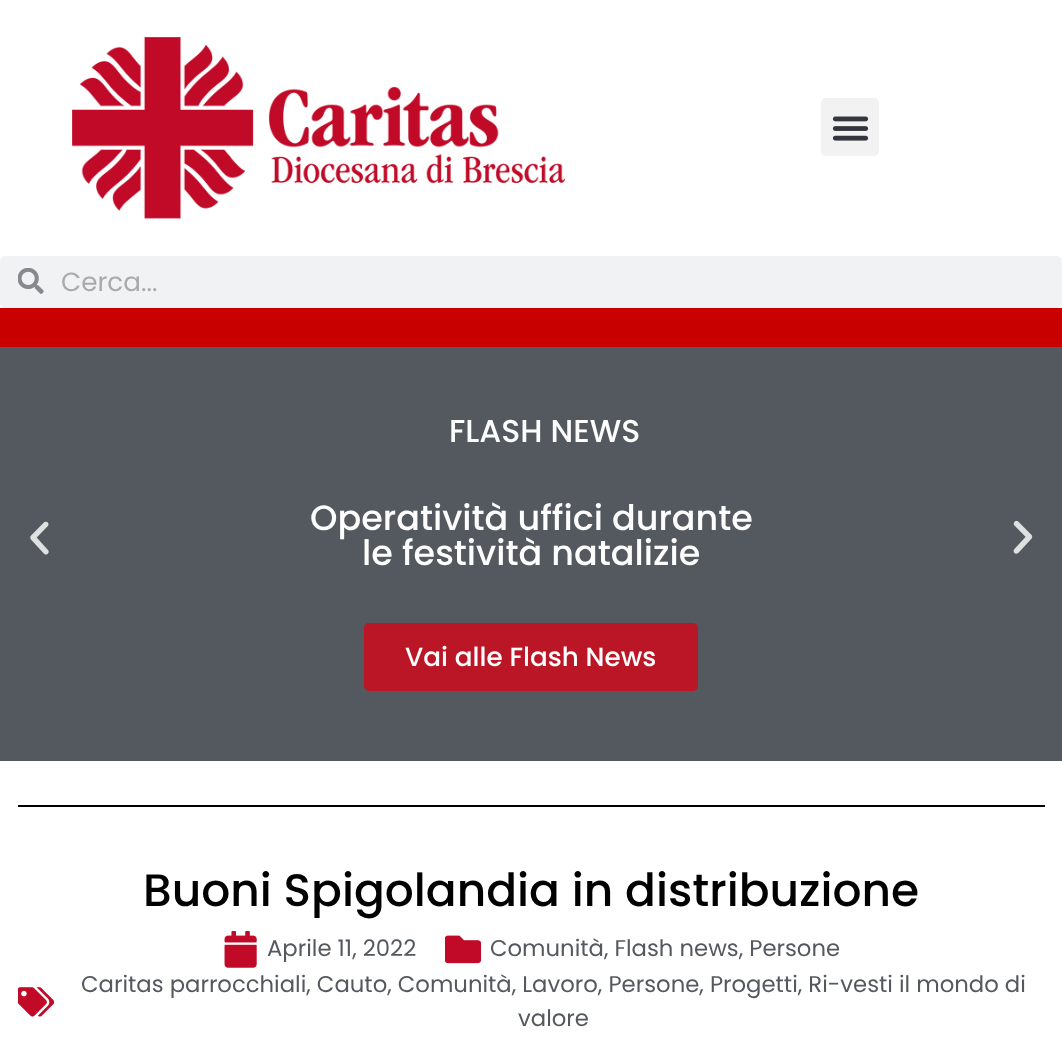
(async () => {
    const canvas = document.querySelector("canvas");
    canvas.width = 1062;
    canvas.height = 1062;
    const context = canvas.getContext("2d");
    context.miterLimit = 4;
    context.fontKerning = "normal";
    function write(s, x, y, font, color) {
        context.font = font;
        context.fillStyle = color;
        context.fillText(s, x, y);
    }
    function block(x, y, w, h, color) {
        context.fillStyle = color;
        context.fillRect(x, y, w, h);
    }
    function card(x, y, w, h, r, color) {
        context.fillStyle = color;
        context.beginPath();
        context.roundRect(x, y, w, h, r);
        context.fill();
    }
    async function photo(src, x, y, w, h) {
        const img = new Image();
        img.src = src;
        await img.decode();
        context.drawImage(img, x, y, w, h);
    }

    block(0, 0, 1062, 1062, "rgb(255, 255, 255)");
    await photo("media/1.png", 72, 37, 493, 182);
    card(821, 98, 58, 58, 5, "rgb(242, 242, 242)");
    await photo("media/2.png", 832, 116, 37, 25);
    card(0, 256, 1062, 52, 5, "rgb(241, 242, 243)");
    await photo("media/3.png", 18, 268, 26, 26);
    write("Cerca...", 61, 291, "26.25px Poppins", "rgb(170, 170, 170)");
    block(0, 308, 1062, 39, "rgb(201, 0, 0)");
    block(0, 347, 1062, 414, "rgb(84, 89, 95)");
    await photo("media/4.png", 30, 521, 19, 34);
    write("FLASH NEWS", 449, 442, "500 31.5px Poppins", "rgb(253, 253, 253)");
    write("Operatività uffici durante", 310, 530, "500 35px Poppins", "rgb(253, 253, 253)");
    write("le festività natalizie", 362, 565, "500 35px Poppins", "rgb(253, 253, 253)");
    card(364, 623, 334, 68, 5, "rgb(187, 22, 37)");
    write("Vai alle Flash News", 405, 666, "500 26.25px Poppins", "rgb(253, 253, 253)");
    await photo("media/5.png", 1013, 520, 20, 34);
    block(18, 805, 1027, 2, "rgb(0, 0, 0)");
    write("Buoni Spigolandia in distribuzione", 143, 906, "500 45.5px Poppins", "rgb(0, 0, 0)");
    await photo("media/6.png", 224, 931, 33, 37);
    write("Aprile 11, 2022", 267, 956, "22.75px Poppins", "rgb(84, 89, 95)");
    await photo("media/7.png", 445, 935, 36, 29);
    write("Comunità, Flash news, Persone", 490, 956, "22.75px Poppins", "rgb(84, 89, 95)");
    await photo("media/8.png", 18, 987, 36, 30);
    write("Caritas parrocchiali, Cauto, Comunità, Lavoro, Persone, Progetti, Ri-vesti il mondo di", 81, 992, "22.75px Poppins", "rgb(84, 89, 95)");
    write("valore", 518, 1026, "22.75px Poppins", "rgb(84, 89, 95)");
})();
